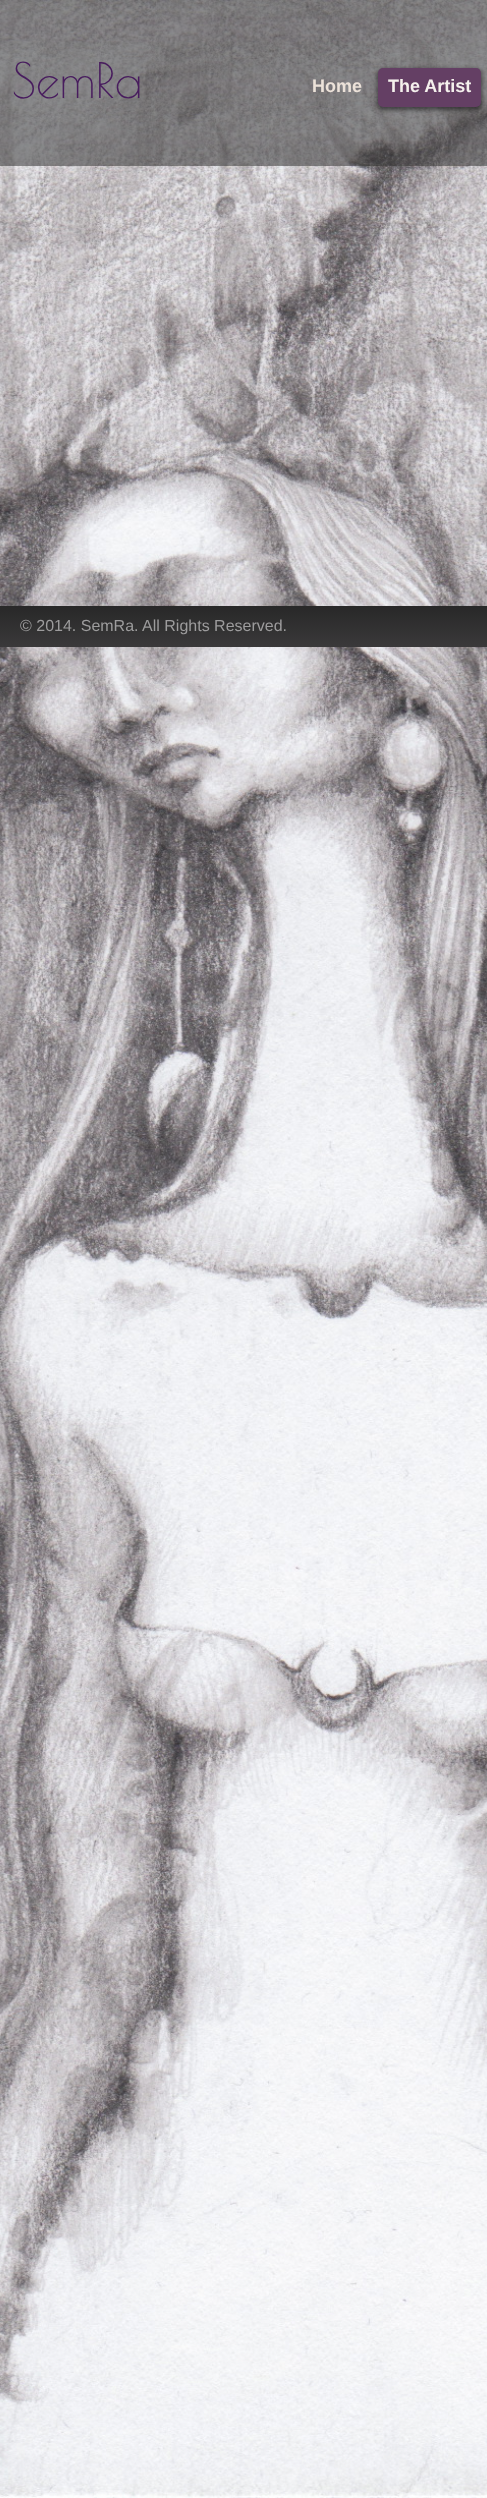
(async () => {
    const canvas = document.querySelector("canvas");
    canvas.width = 487;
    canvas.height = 2498;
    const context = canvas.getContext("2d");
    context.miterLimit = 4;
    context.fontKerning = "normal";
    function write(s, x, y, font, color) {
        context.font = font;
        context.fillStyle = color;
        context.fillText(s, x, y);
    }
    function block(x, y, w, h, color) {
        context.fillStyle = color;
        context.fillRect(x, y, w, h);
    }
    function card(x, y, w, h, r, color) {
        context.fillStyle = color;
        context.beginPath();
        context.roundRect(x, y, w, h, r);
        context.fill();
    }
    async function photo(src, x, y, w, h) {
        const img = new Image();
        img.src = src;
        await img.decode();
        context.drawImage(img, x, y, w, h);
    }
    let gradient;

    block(0, 0, 487, 2498, "rgb(255, 255, 255)");
    await photo("media/1.png", 0, 0, 487, 2498);
    write("SemRa", 12, 98, "48px Poiret One", "rgb(72, 28, 94)");
    write("Home", 312, 92, "bold 18px Liberation Sans", "rgb(236, 226, 217)");
    context.fillStyle = "rgba(0, 0, 0, 0.5)";
    context.filter = "blur(2px)";
    context.beginPath();
    context.roundRect(377, 69, 105, 41, 6);
    context.fill();
    context.filter = "none";
    card(378, 68, 103, 39, 5, "rgb(100, 63, 100)");
    write("The Artist", 388, 92, "bold 18px Liberation Sans", "rgb(245, 241, 237)");
    gradient = context.createLinearGradient(480, 606, 480, 647);
    gradient.addColorStop(0, "rgb(40, 40, 40)");
    gradient.addColorStop(1, "rgb(58, 57, 58)");
    context.fillStyle = gradient;
    context.fillRect(0, 606, 487, 41);
    write("© 2014. SemRa. All Rights Reserved.", 20, 631, "16px Liberation Sans", "rgb(157, 156, 157)");
})();
